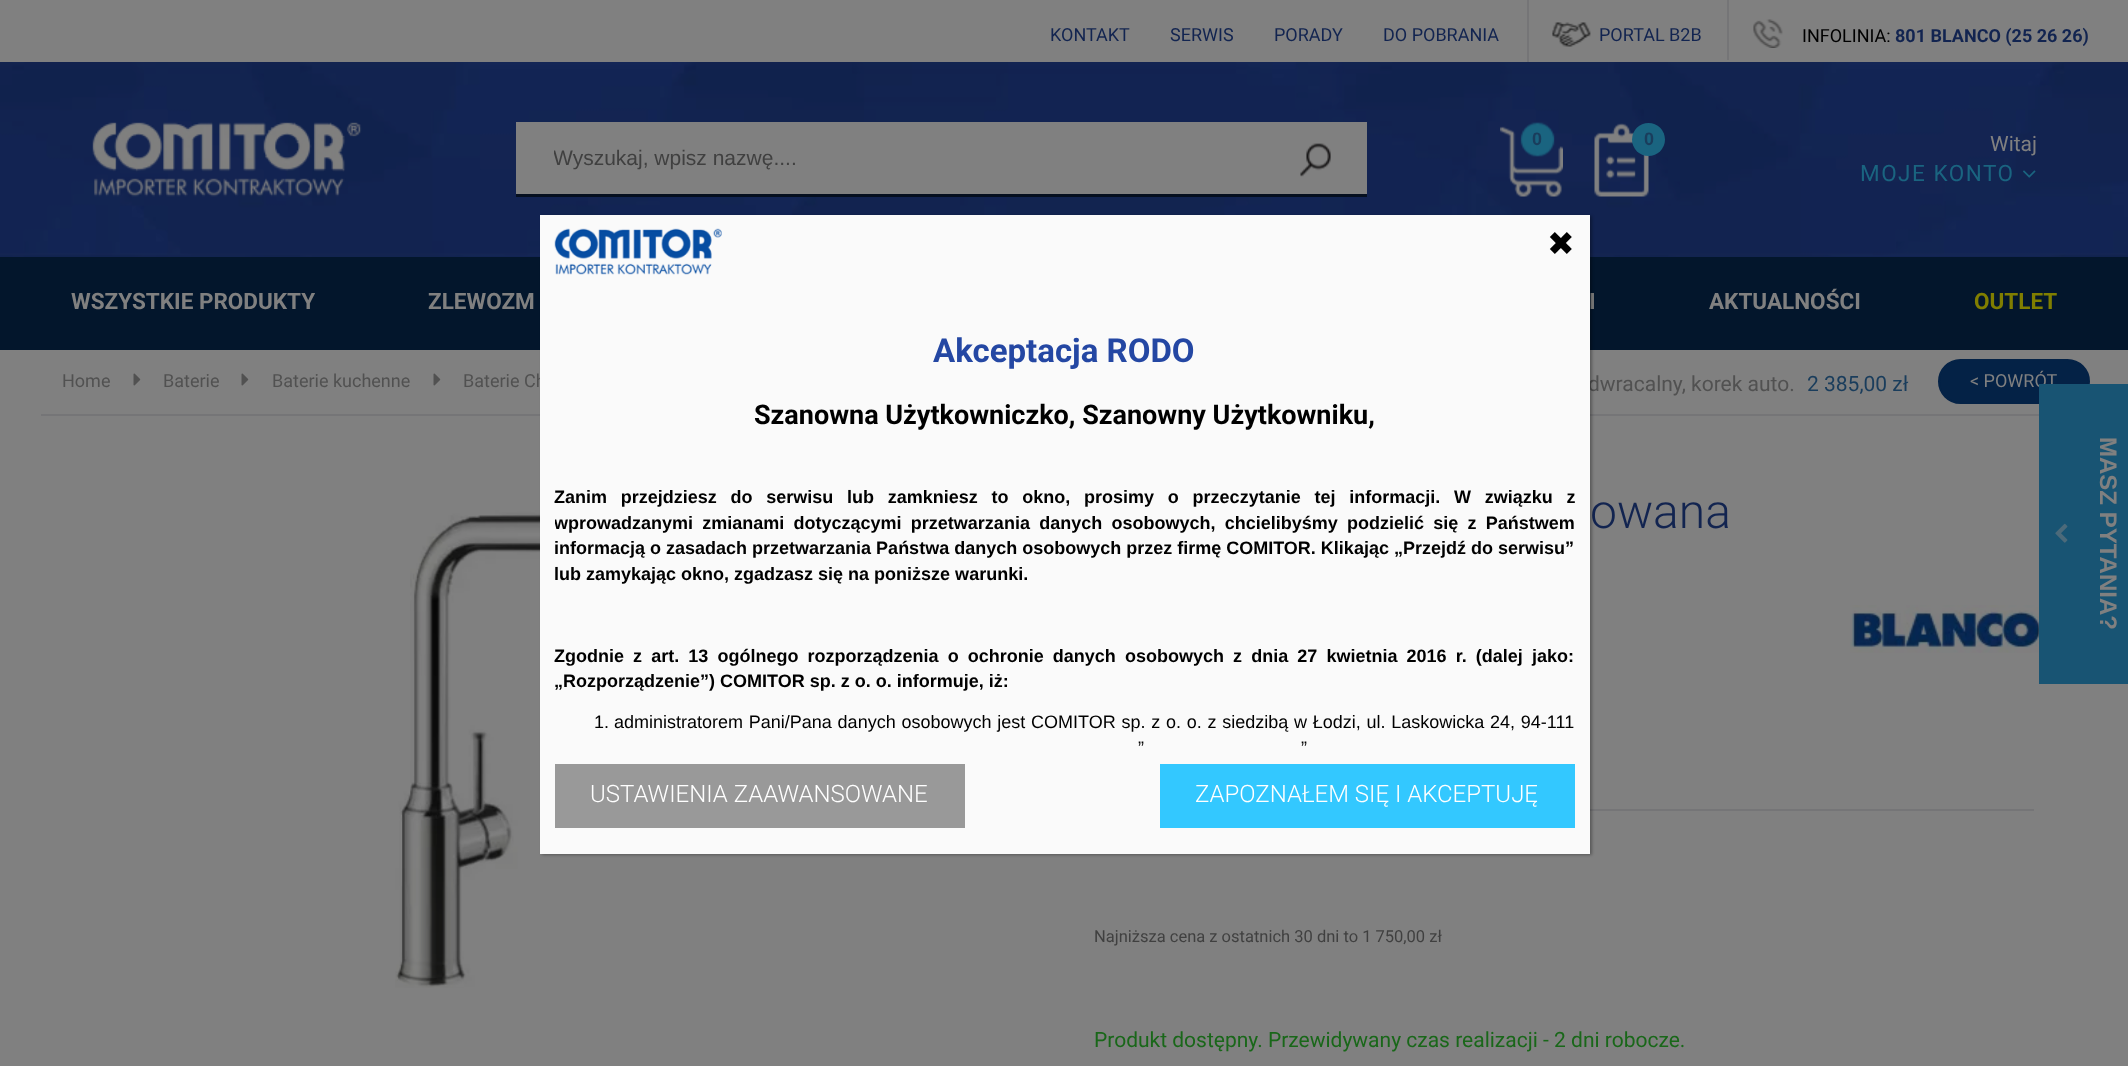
(async () => {
    const canvas = document.querySelector("canvas");
    canvas.width = 2128;
    canvas.height = 1066;
    const context = canvas.getContext("2d");
    context.miterLimit = 4;
    context.fontKerning = "normal";
    function write(s, x, y, font, color) {
        context.font = font;
        context.fillStyle = color;
        context.fillText(s, x, y);
    }
    function block(x, y, w, h, color) {
        context.fillStyle = color;
        context.fillRect(x, y, w, h);
    }
    async function photo(src, x, y, w, h) {
        const img = new Image();
        img.src = src;
        await img.decode();
        context.drawImage(img, x, y, w, h);
    }

    block(0, 0, 2128, 1066, "rgb(128, 128, 128)");
    write("KONTAKT", 1050, 41, "18px Roboto", "rgb(18, 36, 80)");
    write("SERWIS", 1170, 41, "18px Roboto", "rgb(18, 36, 80)");
    write("PORADY", 1274, 41, "18px Roboto", "rgb(18, 36, 80)");
    write("DO POBRANIA", 1383, 41, "18px Roboto", "rgb(18, 36, 80)");
    block(1527, 0, 2, 62, "rgb(117, 117, 119)");
    await photo("media/1.png", 1552, 22, 39, 25);
    write("PORTAL B2B", 1599, 41, "18px Roboto", "rgb(18, 36, 80)");
    block(1727, 0, 2, 60, "rgb(117, 117, 119)");
    await photo("media/2.png", 1753, 19, 30, 29);
    write("INFOLINIA:", 1802, 42, "18px Roboto", "rgb(0, 0, 0)");
    write("801 BLANCO (25 26 26)", 1895, 42, "bold 18px Roboto", "rgb(18, 36, 80)");
    block(0, 256, 2128, 1, "rgb(18, 36, 80)");
    await photo("media/3.png", 0, 62, 2128, 195);
    await photo("media/4.png", 92, 122, 270, 75);
    block(516, 122, 851, 72, "rgb(128, 128, 128)");
    block(516, 194, 851, 3, "rgb(5, 15, 31)");
    context.save();
    context.beginPath();
    context.rect(554, 146, 775, 24);
    context.clip();
    write("Wyszukaj, wpisz nazwę....", 553, 165, "21px Liberation Sans", "rgb(64, 64, 64)");
    context.restore();
    await photo("media/5.png", 1300, 143, 31, 34);
    await photo("media/6.png", 1500, 122, 63, 75);
    write("0", 1532, 145, "bold 18px Liberation Sans", "rgb(26, 61, 92)");
    await photo("media/7.png", 1594, 123, 55, 74);
    context.fillStyle = "rgb(26, 100, 128)";
    context.beginPath();
    context.arc(1648.5, 139.5, 16.5, 0, Math.PI * 2);
    context.fill();
    write("0", 1644, 145, "bold 18px Liberation Sans", "rgb(26, 61, 92)");
    write("Witaj", 1990, 151, "21px Roboto", "rgb(128, 128, 128)");
    context.letterSpacing = "1.5px";
    write("MOJE KONTO", 1860, 181, "22.5px Roboto", "rgb(26, 100, 128)");
    await photo("media/8.png", 2023, 170, 13, 8);
    block(0, 257, 2128, 93, "rgb(3, 22, 44)");
    context.letterSpacing = "0px";
    write("WSZYSTKIE PRODUKTY", 71, 309, "bold 22.5px Roboto", "rgb(128, 128, 128)");
    write("ZLEWOZM", 428, 309, "bold 22.5px Roboto", "rgb(128, 128, 128)");
    write("I", 1589, 309, "bold 22.5px Roboto", "rgb(128, 128, 128)");
    write("AKTUALNOŚCI", 1709, 309, "bold 22.5px Roboto", "rgb(128, 128, 128)");
    write("OUTLET", 1974, 309, "bold 22.5px Roboto", "rgb(128, 126, 0)");
    block(41, 414, 1998, 2, "rgb(117, 117, 119)");
    write("Home", 62, 387, "18px Roboto", "rgb(81, 81, 81)");
    await photo("media/9.png", 133, 373, 8, 13);
    write("Baterie", 163, 387, "18px Roboto", "rgb(81, 81, 81)");
    await photo("media/9.png", 241, 373, 8, 13);
    write("Baterie kuchenne", 272, 387, "18px Roboto", "rgb(81, 81, 81)");
    await photo("media/9.png", 433, 373, 8, 13);
    write("Baterie Ch", 463, 387, "18px Roboto", "rgb(81, 81, 81)");
    write("dwracalny, korek auto.", 1588, 391, "21px Roboto", "rgb(81, 81, 81)");
    write("2 385,00 zł", 1807, 391, "21px Roboto", "rgb(26, 61, 92)");
    context.fillStyle = "rgb(4, 34, 70)";
    context.beginPath();
    context.roundRect(1939, 360, 150, 43, 21.5);
    context.fill();
    context.strokeStyle = "rgb(4, 34, 70)";
    context.lineWidth = 2;
    context.stroke();
    write("< POWRÓT", 1970, 387, "18px Roboto", "rgb(128, 128, 128)");
    await photo("media/10.png", 395, 510, 292, 478);
    write("owana", 1590, 528, "300 48px Roboto", "rgb(18, 36, 80)");
    await photo("media/11.png", 1850, 605, 189, 48);
    block(1590, 809, 444, 2, "rgb(117, 117, 119)");
    write("Najniższa cena z ostatnich 30 dni to 1 750,00 zł", 1094, 942, "16.5px Roboto", "rgb(64, 64, 64)");
    write("Produkt dostępny. Przewidywany czas realizacji - 2 dni robocze.", 1094, 1047, "21px Roboto", "rgb(25, 103, 25)");
    context.fillStyle = "rgba(0, 0, 0, 0.3)";
    context.filter = "blur(1.5px)";
    context.beginPath();
    context.rect(542, 216, 1050, 639);
    context.fill();
    context.filter = "none";
    block(540, 215, 1050, 639, "rgb(250, 250, 250)");
    await photo("media/12.png", 554, 228, 168, 47);
    write("✖", 1547, 255, "33px DejaVu Sans", "rgb(0, 0, 0)");
    write("Akceptacja RODO", 933, 362, "bold 33px Roboto", "rgb(36, 71, 163)");
    write("Szanowna Użytkowniczko, Szanowny Użytkowniku,", 754, 424, "bold 27px Roboto", "rgb(0, 0, 0)");
    context.wordSpacing = "8.75px";
    write("Zanim przejdziesz do serwisu lub zamkniesz to okno, prosimy o przeczytanie tej informacji. W związku z", 554, 503, "bold 18px Liberation Sans", "rgb(0, 0, 0)");
    context.save();
    context.beginPath();
    context.rect(555, 305, 1020, 444);
    context.clip();
    context.wordSpacing = "4.25px";
    write("wprowadzanymi zmianami dotyczącymi przetwarzania danych osobowych, chcielibyśmy podzielić się z Państwem", 554, 529, "bold 18px Liberation Sans", "rgb(0, 0, 0)");
    context.restore();
    context.wordSpacing = "0px";
    write("informacją o zasadach przetwarzania Państwa danych osobowych przez firmę COMITOR. Klikając „Przejdź do serwisu”", 554, 554, "bold 18px Liberation Sans", "rgb(0, 0, 0)");
    write("lub zamykając okno, zgadzasz się na poniższe warunki.", 554, 580, "bold 18px Liberation Sans", "rgb(0, 0, 0)");
    context.wordSpacing = "4.1px";
    write("Zgodnie z art. 13 ogólnego rozporządzenia o ochronie danych osobowych z dnia 27 kwietnia 2016 r. (dalej jako:", 554, 662, "bold 18px Liberation Sans", "rgb(0, 0, 0)");
    context.wordSpacing = "0px";
    write("„Rozporządzenie”) COMITOR sp. z o. o. informuje, iż:", 554, 687, "bold 18px Liberation Sans", "rgb(0, 0, 0)");
    write("1.", 594, 728, "18px Liberation Sans", "rgb(0, 0, 0)");
    context.wordSpacing = "0.75px";
    write("administratorem Pani/Pana danych osobowych jest COMITOR sp. z o. o. z siedzibą w Łodzi, ul. Laskowicka 24, 94-111", 614, 728, "18px Liberation Sans", "rgb(0, 0, 0)");
    context.wordSpacing = "0px";
    write("”", 1138, 754, "18px Liberation Sans", "rgb(0, 0, 0)");
    write("”", 1301, 754, "18px Liberation Sans", "rgb(0, 0, 0)");
    block(555, 764, 410, 64, "rgb(153, 153, 153)");
    write("USTAWIENIA ZAAWANSOWANE", 590, 802, "300 24px Roboto", "rgb(255, 255, 255)");
    block(1160, 764, 415, 64, "rgb(51, 200, 255)");
    write("ZAPOZNAŁEM SIĘ I AKCEPTUJĘ", 1195, 802, "300 24px Roboto", "rgb(255, 255, 255)");
    block(2039, 384, 89, 300, "rgb(24, 84, 115)");
    await photo("media/13.png", 2055, 523, 13, 20);
    context.font = "bold 24px Liberation Sans";
    context.fillStyle = "rgb(128, 128, 128)";
    context.save();
    context.translate(2100, 437);
    context.rotate(90 * Math.PI / 180);
    context.fillText("MASZ PYTANIA?", 0, 0);
    context.restore();
})();
